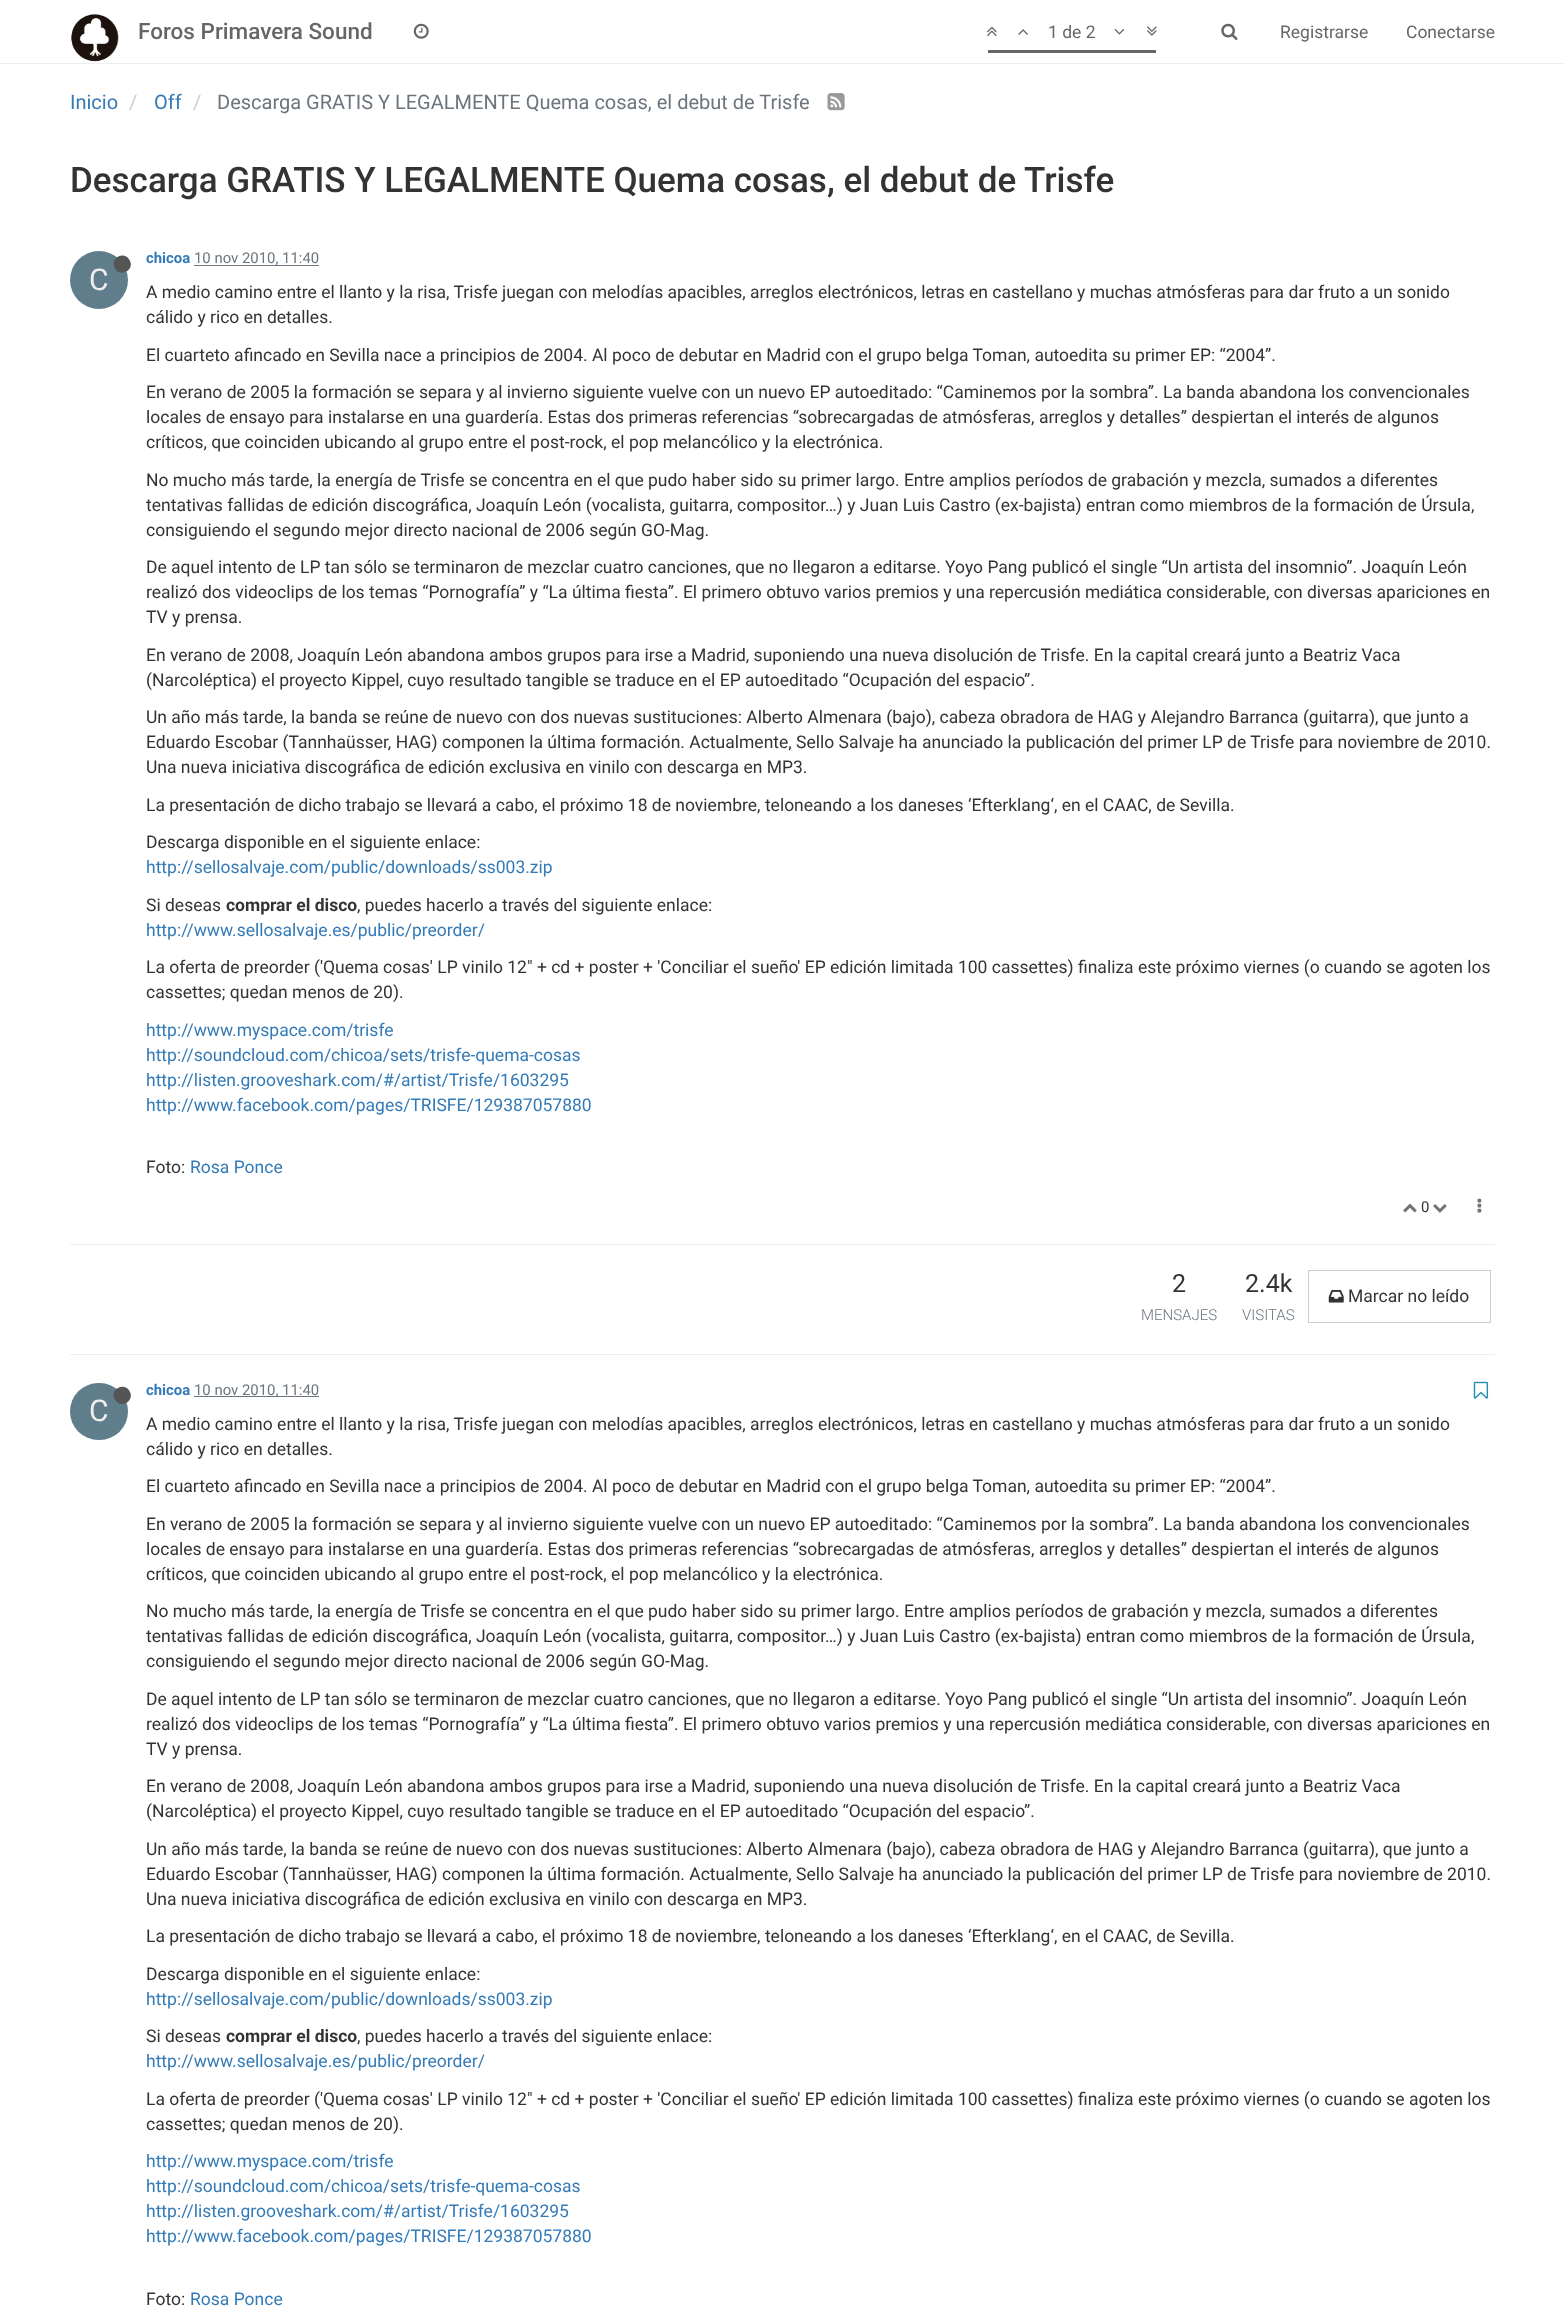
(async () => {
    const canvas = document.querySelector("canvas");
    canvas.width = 1564;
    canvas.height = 2311;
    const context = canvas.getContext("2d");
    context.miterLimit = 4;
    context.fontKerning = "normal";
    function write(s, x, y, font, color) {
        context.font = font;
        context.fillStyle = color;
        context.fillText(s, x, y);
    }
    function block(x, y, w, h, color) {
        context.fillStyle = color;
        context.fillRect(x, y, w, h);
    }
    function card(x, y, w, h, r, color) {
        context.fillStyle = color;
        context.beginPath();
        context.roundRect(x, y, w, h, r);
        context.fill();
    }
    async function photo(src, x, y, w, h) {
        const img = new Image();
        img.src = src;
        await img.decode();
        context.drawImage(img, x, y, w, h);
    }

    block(0, 0, 1564, 2311, "rgb(255, 255, 255)");
    block(0, 63, 1564, 1, "rgb(238, 238, 238)");
    await photo("media/1.png", 71, 14, 48, 48);
    write("Foros Primavera Sound", 138, 39, "500 22.5px Roboto", "rgb(102, 102, 102)");
    await photo("media/2.png", 413, 23, 16, 16);
    await photo("media/3.png", 987, 26, 10, 11);
    await photo("media/4.png", 1018, 29, 10, 6);
    write("1 de 2", 1048, 38, "17.5px Roboto", "rgb(102, 102, 102)");
    await photo("media/5.png", 1114, 28, 11, 7);
    await photo("media/6.png", 1147, 26, 10, 10);
    block(988, 50, 168, 3, "rgb(102, 102, 102)");
    await photo("media/7.png", 1221, 23, 17, 17);
    write("Registrarse", 1280, 38, "17.5px Roboto", "rgb(102, 102, 102)");
    write("Conectarse", 1406, 38, "17.5px Roboto", "rgb(102, 102, 102)");
    write("Inicio", 70, 109, "20px Roboto", "rgb(51, 122, 183)");
    write("/", 129, 109, "20px Roboto", "rgb(204, 204, 204)");
    write("Off", 154, 109, "20px Roboto", "rgb(51, 122, 183)");
    write("/", 193, 109, "20px Roboto", "rgb(204, 204, 204)");
    write("Descarga GRATIS Y LEGALMENTE Quema cosas, el debut de Trisfe", 217, 109, "20px Roboto", "rgb(108, 117, 125)");
    await photo("media/8.png", 827, 93, 18, 18);
    write("Descarga GRATIS Y LEGALMENTE Quema cosas, el debut de Trisfe", 70, 192, "500 35px Roboto", "rgb(51, 51, 51)");
    write("chicoa", 146, 263, "bold 14.9px Roboto", "rgb(51, 122, 183)");
    block(194, 265, 125, 1, "rgb(108, 117, 125)");
    write("10 nov 2010, 11:40", 194, 263, "14.9px Roboto", "rgb(108, 117, 125)");
    context.fillStyle = "rgb(96, 125, 139)";
    context.beginPath();
    context.arc(99, 280, 29, 0, Math.PI * 2);
    context.fill();
    context.fillStyle = "rgb(85, 85, 85)";
    context.beginPath();
    context.moveTo(129.5, 260);
    context.bezierCurveTo(135.5, 269.5, 120.5, 278, 115, 268.5);
    context.bezierCurveTo(109, 258.5, 124, 250, 129.5, 260);
    context.closePath();
    context.fill();
    write("C", 89, 290, "30px Roboto", "rgb(238, 238, 238)");
    write("A medio camino entre el llanto y la risa, Trisfe juegan con melodías apacibles, arreglos electrónicos, letras en castellano y muchas atmósferas para dar fruto a un sonido", 146, 298, "17.5px Roboto", "rgb(51, 51, 51)");
    write("cálido y rico en detalles.", 146, 323, "17.5px Roboto", "rgb(51, 51, 51)");
    write("El cuarteto afincado en Sevilla nace a principios de 2004. Al poco de debutar en Madrid con el grupo belga Toman, autoedita su primer EP: “2004”.", 146, 361, "17.5px Roboto", "rgb(51, 51, 51)");
    write("En verano de 2005 la formación se separa y al invierno siguiente vuelve con un nuevo EP autoeditado: “Caminemos por la sombra”. La banda abandona los convencionales", 146, 398, "17.5px Roboto", "rgb(51, 51, 51)");
    write("locales de ensayo para instalarse en una guardería. Estas dos primeras referencias “sobrecargadas de atmósferas, arreglos y detalles” despiertan el interés de algunos", 146, 423, "17.5px Roboto", "rgb(51, 51, 51)");
    write("críticos, que coinciden ubicando al grupo entre el post-rock, el pop melancólico y la electrónica.", 146, 448, "17.5px Roboto", "rgb(51, 51, 51)");
    write("No mucho más tarde, la energía de Trisfe se concentra en el que pudo haber sido su primer largo. Entre amplios períodos de grabación y mezcla, sumados a diferentes", 146, 486, "17.5px Roboto", "rgb(51, 51, 51)");
    write("tentativas fallidas de edición discográfica, Joaquín León (vocalista, guitarra, compositor…) y Juan Luis Castro (ex-bajista) entran como miembros de la formación de Úrsula,", 146, 511, "17.5px Roboto", "rgb(51, 51, 51)");
    write("consiguiendo el segundo mejor directo nacional de 2006 según GO-Mag.", 146, 536, "17.5px Roboto", "rgb(51, 51, 51)");
    write("De aquel intento de LP tan sólo se terminaron de mezclar cuatro canciones, que no llegaron a editarse. Yoyo Pang publicó el single “Un artista del insomnio”. Joaquín León", 146, 573, "17.5px Roboto", "rgb(51, 51, 51)");
    write("realizó dos videoclips de los temas “Pornografía” y “La última fiesta”. El primero obtuvo varios premios y una repercusión mediática considerable, con diversas apariciones en", 146, 598, "17.5px Roboto", "rgb(51, 51, 51)");
    write("TV y prensa.", 146, 623, "17.5px Roboto", "rgb(51, 51, 51)");
    write("En verano de 2008, Joaquín León abandona ambos grupos para irse a Madrid, suponiendo una nueva disolución de Trisfe. En la capital creará junto a Beatriz Vaca", 146, 661, "17.5px Roboto", "rgb(51, 51, 51)");
    write("(Narcoléptica) el proyecto Kippel, cuyo resultado tangible se traduce en el EP autoeditado “Ocupación del espacio”.", 146, 686, "17.5px Roboto", "rgb(51, 51, 51)");
    write("Un año más tarde, la banda se reúne de nuevo con dos nuevas sustituciones: Alberto Almenara (bajo), cabeza obradora de HAG y Alejandro Barranca (guitarra), que junto a", 146, 723, "17.5px Roboto", "rgb(51, 51, 51)");
    write("Eduardo Escobar (Tannhaüsser, HAG) componen la última formación. Actualmente, Sello Salvaje ha anunciado la publicación del primer LP de Trisfe para noviembre de 2010.", 146, 748, "17.5px Roboto", "rgb(51, 51, 51)");
    write("Una nueva iniciativa discográfica de edición exclusiva en vinilo con descarga en MP3.", 146, 773, "17.5px Roboto", "rgb(51, 51, 51)");
    write("La presentación de dicho trabajo se llevará a cabo, el próximo 18 de noviembre, teloneando a los daneses ‘Efterklang‘, en el CAAC, de Sevilla.", 146, 811, "17.5px Roboto", "rgb(51, 51, 51)");
    write("Descarga disponible en el siguiente enlace:", 146, 848, "17.5px Roboto", "rgb(51, 51, 51)");
    write("http://sellosalvaje.com/public/downloads/ss003.zip", 146, 873, "17.5px Roboto", "rgb(51, 122, 183)");
    write("Si deseas", 146, 911, "17.5px Roboto", "rgb(51, 51, 51)");
    write("comprar el disco", 226, 911, "bold 17.5px Roboto", "rgb(51, 51, 51)");
    write(", puedes hacerlo a través del siguiente enlace:", 357, 911, "17.5px Roboto", "rgb(51, 51, 51)");
    write("http://www.sellosalvaje.es/public/preorder/", 146, 936, "17.5px Roboto", "rgb(51, 122, 183)");
    write("La oferta de preorder ('Quema cosas' LP vinilo 12\" + cd + poster + 'Conciliar el sueño' EP edición limitada 100 cassettes) finaliza este próximo viernes (o cuando se agoten los", 146, 973, "17.5px Roboto", "rgb(51, 51, 51)");
    write("cassettes; quedan menos de 20).", 146, 998, "17.5px Roboto", "rgb(51, 51, 51)");
    write("http://www.myspace.com/trisfe", 146, 1036, "17.5px Roboto", "rgb(51, 122, 183)");
    write("http://soundcloud.com/chicoa/sets/trisfe-quema-cosas", 146, 1061, "17.5px Roboto", "rgb(51, 122, 183)");
    write("http://listen.grooveshark.com/#/artist/Trisfe/1603295", 146, 1086, "17.5px Roboto", "rgb(51, 122, 183)");
    write("http://www.facebook.com/pages/TRISFE/129387057880", 146, 1111, "17.5px Roboto", "rgb(51, 122, 183)");
    write("Foto:", 146, 1173, "17.5px Roboto", "rgb(51, 51, 51)");
    write("Rosa Ponce", 190, 1173, "17.5px Roboto", "rgb(51, 122, 183)");
    await photo("media/9.png", 1403, 1203, 14, 10);
    write("0", 1421, 1212, "14.9px Roboto", "rgb(51, 51, 51)");
    await photo("media/10.png", 1433, 1204, 14, 9);
    await photo("media/11.png", 1477, 1198, 5, 15);
    block(70, 1244, 1425, 1, "rgb(238, 238, 238)");
    write("2", 1172, 1292, "25px Roboto", "rgb(51, 51, 51)");
    write("MENSAJES", 1141, 1320, "300 15px Roboto", "rgb(108, 117, 125)");
    write("2.4k", 1245, 1292, "25px Roboto", "rgb(51, 51, 51)");
    write("VISITAS", 1242, 1320, "300 15px Roboto", "rgb(108, 117, 125)");
    context.strokeStyle = "rgb(204, 204, 204)";
    context.strokeRect(1308.5, 1270.5, 182, 52);
    await photo("media/12.png", 1328, 1290, 16, 13);
    write("Marcar no leído", 1348, 1302, "17.5px Roboto", "rgb(51, 51, 51)");
    block(70, 1354, 1425, 1, "rgb(238, 238, 238)");
    write("chicoa", 146, 1395, "bold 14.9px Roboto", "rgb(51, 122, 183)");
    block(194, 1396, 125, 1, "rgb(108, 117, 125)");
    write("10 nov 2010, 11:40", 194, 1395, "14.9px Roboto", "rgb(108, 117, 125)");
    await photo("media/13.png", 1473, 1381, 16, 18);
    card(70, 1383, 58, 57, 28.5, "rgb(96, 125, 139)");
    context.fillStyle = "rgb(85, 85, 85)";
    context.beginPath();
    context.moveTo(129.5, 1391);
    context.bezierCurveTo(135.5, 1401, 120.5, 1409.5, 115, 1399.5);
    context.bezierCurveTo(109, 1390, 124, 1381.5, 129.5, 1391);
    context.closePath();
    context.fill();
    write("C", 89, 1421, "30px Roboto", "rgb(238, 238, 238)");
    write("A medio camino entre el llanto y la risa, Trisfe juegan con melodías apacibles, arreglos electrónicos, letras en castellano y muchas atmósferas para dar fruto a un sonido", 146, 1430, "17.5px Roboto", "rgb(51, 51, 51)");
    write("cálido y rico en detalles.", 146, 1455, "17.5px Roboto", "rgb(51, 51, 51)");
    write("El cuarteto afincado en Sevilla nace a principios de 2004. Al poco de debutar en Madrid con el grupo belga Toman, autoedita su primer EP: “2004”.", 146, 1492, "17.5px Roboto", "rgb(51, 51, 51)");
    write("En verano de 2005 la formación se separa y al invierno siguiente vuelve con un nuevo EP autoeditado: “Caminemos por la sombra”. La banda abandona los convencionales", 146, 1530, "17.5px Roboto", "rgb(51, 51, 51)");
    write("locales de ensayo para instalarse en una guardería. Estas dos primeras referencias “sobrecargadas de atmósferas, arreglos y detalles” despiertan el interés de algunos", 146, 1555, "17.5px Roboto", "rgb(51, 51, 51)");
    write("críticos, que coinciden ubicando al grupo entre el post-rock, el pop melancólico y la electrónica.", 146, 1580, "17.5px Roboto", "rgb(51, 51, 51)");
    write("No mucho más tarde, la energía de Trisfe se concentra en el que pudo haber sido su primer largo. Entre amplios períodos de grabación y mezcla, sumados a diferentes", 146, 1617, "17.5px Roboto", "rgb(51, 51, 51)");
    write("tentativas fallidas de edición discográfica, Joaquín León (vocalista, guitarra, compositor…) y Juan Luis Castro (ex-bajista) entran como miembros de la formación de Úrsula,", 146, 1642, "17.5px Roboto", "rgb(51, 51, 51)");
    write("consiguiendo el segundo mejor directo nacional de 2006 según GO-Mag.", 146, 1667, "17.5px Roboto", "rgb(51, 51, 51)");
    write("De aquel intento de LP tan sólo se terminaron de mezclar cuatro canciones, que no llegaron a editarse. Yoyo Pang publicó el single “Un artista del insomnio”. Joaquín León", 146, 1705, "17.5px Roboto", "rgb(51, 51, 51)");
    write("realizó dos videoclips de los temas “Pornografía” y “La última fiesta”. El primero obtuvo varios premios y una repercusión mediática considerable, con diversas apariciones en", 146, 1730, "17.5px Roboto", "rgb(51, 51, 51)");
    write("TV y prensa.", 146, 1755, "17.5px Roboto", "rgb(51, 51, 51)");
    write("En verano de 2008, Joaquín León abandona ambos grupos para irse a Madrid, suponiendo una nueva disolución de Trisfe. En la capital creará junto a Beatriz Vaca", 146, 1792, "17.5px Roboto", "rgb(51, 51, 51)");
    write("(Narcoléptica) el proyecto Kippel, cuyo resultado tangible se traduce en el EP autoeditado “Ocupación del espacio”.", 146, 1817, "17.5px Roboto", "rgb(51, 51, 51)");
    write("Un año más tarde, la banda se reúne de nuevo con dos nuevas sustituciones: Alberto Almenara (bajo), cabeza obradora de HAG y Alejandro Barranca (guitarra), que junto a", 146, 1855, "17.5px Roboto", "rgb(51, 51, 51)");
    write("Eduardo Escobar (Tannhaüsser, HAG) componen la última formación. Actualmente, Sello Salvaje ha anunciado la publicación del primer LP de Trisfe para noviembre de 2010.", 146, 1880, "17.5px Roboto", "rgb(51, 51, 51)");
    write("Una nueva iniciativa discográfica de edición exclusiva en vinilo con descarga en MP3.", 146, 1905, "17.5px Roboto", "rgb(51, 51, 51)");
    write("La presentación de dicho trabajo se llevará a cabo, el próximo 18 de noviembre, teloneando a los daneses ‘Efterklang‘, en el CAAC, de Sevilla.", 146, 1942, "17.5px Roboto", "rgb(51, 51, 51)");
    write("Descarga disponible en el siguiente enlace:", 146, 1980, "17.5px Roboto", "rgb(51, 51, 51)");
    write("http://sellosalvaje.com/public/downloads/ss003.zip", 146, 2005, "17.5px Roboto", "rgb(51, 122, 183)");
    write("Si deseas", 146, 2042, "17.5px Roboto", "rgb(51, 51, 51)");
    write("comprar el disco", 226, 2042, "bold 17.5px Roboto", "rgb(51, 51, 51)");
    write(", puedes hacerlo a través del siguiente enlace:", 357, 2042, "17.5px Roboto", "rgb(51, 51, 51)");
    write("http://www.sellosalvaje.es/public/preorder/", 146, 2067, "17.5px Roboto", "rgb(51, 122, 183)");
    write("La oferta de preorder ('Quema cosas' LP vinilo 12\" + cd + poster + 'Conciliar el sueño' EP edición limitada 100 cassettes) finaliza este próximo viernes (o cuando se agoten los", 146, 2105, "17.5px Roboto", "rgb(51, 51, 51)");
    write("cassettes; quedan menos de 20).", 146, 2130, "17.5px Roboto", "rgb(51, 51, 51)");
    write("http://www.myspace.com/trisfe", 146, 2167, "17.5px Roboto", "rgb(51, 122, 183)");
    write("http://soundcloud.com/chicoa/sets/trisfe-quema-cosas", 146, 2192, "17.5px Roboto", "rgb(51, 122, 183)");
    write("http://listen.grooveshark.com/#/artist/Trisfe/1603295", 146, 2217, "17.5px Roboto", "rgb(51, 122, 183)");
    write("http://www.facebook.com/pages/TRISFE/129387057880", 146, 2242, "17.5px Roboto", "rgb(51, 122, 183)");
    write("Foto:", 146, 2305, "17.5px Roboto", "rgb(51, 51, 51)");
    write("Rosa Ponce", 190, 2305, "17.5px Roboto", "rgb(51, 122, 183)");
})();
